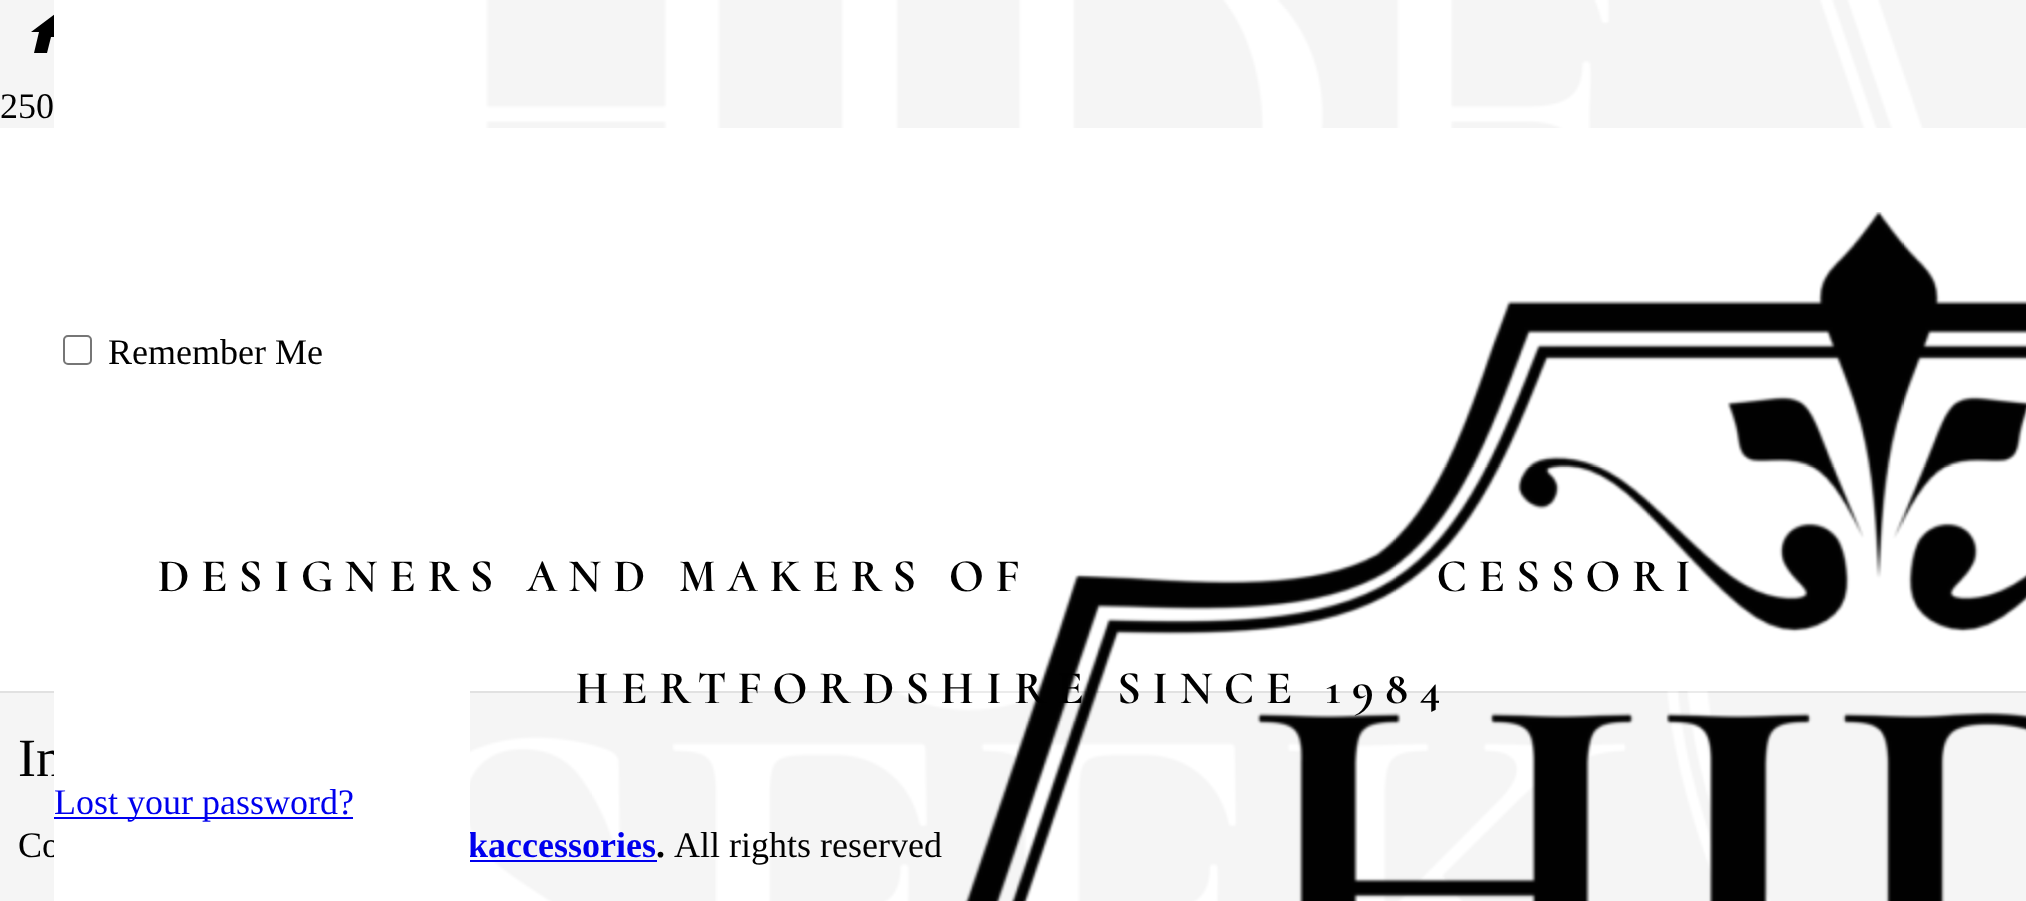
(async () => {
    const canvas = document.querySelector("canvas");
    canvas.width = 2026;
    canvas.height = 901;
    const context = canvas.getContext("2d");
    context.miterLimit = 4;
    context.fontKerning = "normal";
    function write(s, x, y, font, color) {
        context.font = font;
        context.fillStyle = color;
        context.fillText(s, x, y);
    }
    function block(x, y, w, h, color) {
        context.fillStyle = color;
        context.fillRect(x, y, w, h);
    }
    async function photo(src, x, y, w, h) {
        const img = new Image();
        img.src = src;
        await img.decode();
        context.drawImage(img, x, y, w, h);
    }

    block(0, 0, 2026, 901, "rgb(245, 245, 245)");
    write("250", 0, 118, "36px Liberation Serif", "rgb(0, 0, 0)");
    await photo("media/2.png", 470, 0, 1455, 901);
    block(0, 128, 2026, 563, "rgb(255, 255, 255)");
    block(0, 691, 2026, 2, "rgba(0, 0, 0, 0.08)");
    context.fillStyle = "rgb(0, 0, 0)";
    context.beginPath();
    context.moveTo(47, 53);
    context.lineTo(34, 53);
    context.lineTo(39, 32);
    context.lineTo(31, 32);
    context.lineTo(63, 8);
    context.lineTo(84, 32);
    context.lineTo(76, 32);
    context.lineTo(70, 53);
    context.lineTo(57, 53);
    context.lineTo(61, 37);
    context.lineTo(51, 37);
    context.closePath();
    context.fill();
    write("In", 18, 776, "54px Liberation Serif", "rgb(0, 0, 0)");
    write("Co", 18, 857, "36px Liberation Serif", "rgb(0, 0, 0)");
    write("kaccessories", 468, 857, "bold 36px Liberation Serif", "rgb(0, 0, 238)");
    block(54, 0, 416, 901, "rgb(255, 255, 255)");
    context.beginPath();
    context.roundRect(64, 336, 27, 28, 4);
    context.strokeStyle = "rgb(118, 118, 118)";
    context.lineWidth = 2;
    context.stroke();
    write("Remember Me", 108, 364, "36px Liberation Serif", "rgb(0, 0, 0)");
    block(54, 817, 299, 2, "rgb(0, 0, 238)");
    write("Lost your password?", 54, 814, "36px Liberation Serif", "rgb(0, 0, 238)");
    await photo("media/1.png", 964, 212, 1062, 689);
    context.letterSpacing = "11.25px";
    write("DESIGNERS AND MAKERS OF", 157, 591, "bold 46.75px Cormorant Upright", "rgb(0, 0, 0)");
    write("CESSORI", 1437, 591, "bold 46.75px Cormorant Upright", "rgb(0, 0, 0)");
    write("HERTFORDSHIRE SINCE 1984", 575, 703, "bold 46.75px Cormorant Upright", "rgb(0, 0, 0)");
    context.letterSpacing = "0px";
    write(".", 656, 857, "bold 36px Liberation Serif", "rgb(0, 0, 0)");
    block(470, 860, 187, 2, "rgb(0, 0, 238)");
    write("All rights reserved", 674, 857, "36px Liberation Serif", "rgb(0, 0, 0)");
})();
